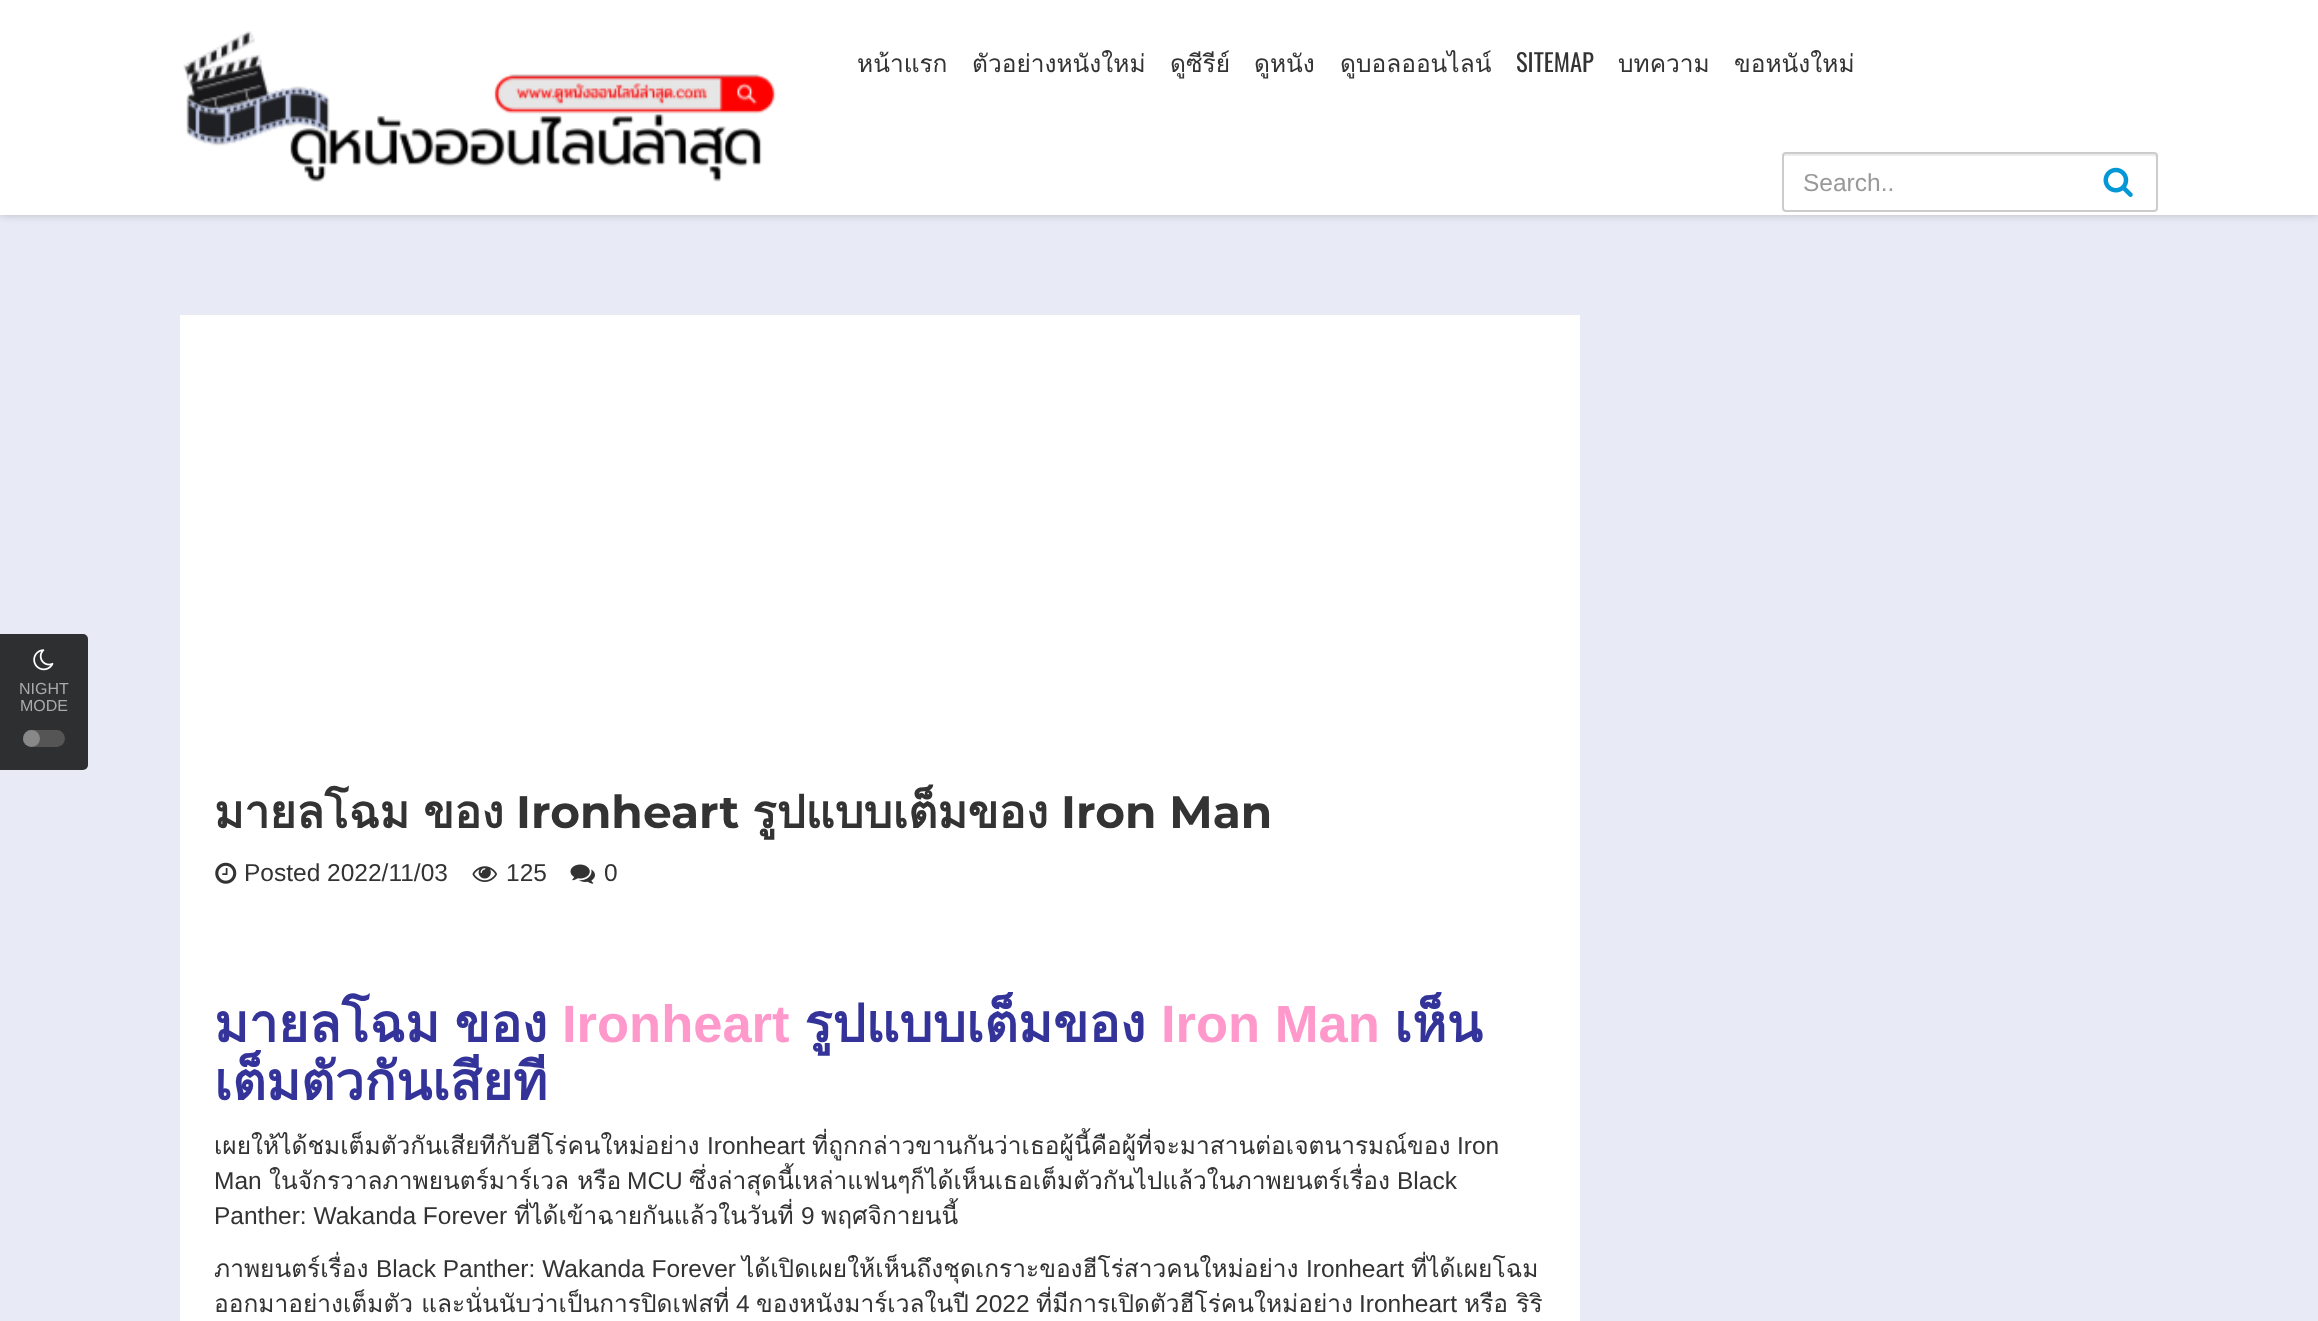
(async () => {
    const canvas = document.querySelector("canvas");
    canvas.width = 2318;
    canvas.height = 1321;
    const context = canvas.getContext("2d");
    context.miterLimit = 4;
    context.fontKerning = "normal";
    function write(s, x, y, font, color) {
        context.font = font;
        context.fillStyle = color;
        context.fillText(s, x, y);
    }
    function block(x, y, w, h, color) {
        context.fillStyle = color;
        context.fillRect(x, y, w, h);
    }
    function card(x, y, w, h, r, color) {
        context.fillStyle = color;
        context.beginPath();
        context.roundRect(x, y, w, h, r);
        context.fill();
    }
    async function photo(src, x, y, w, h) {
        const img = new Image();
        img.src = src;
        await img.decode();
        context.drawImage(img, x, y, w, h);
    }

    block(0, 0, 2318, 1321, "rgb(232, 235, 245)");
    context.fillStyle = "rgba(0, 0, 0, 0.2)";
    context.filter = "blur(4.5px)";
    context.beginPath();
    context.rect(0, 0, 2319, 215);
    context.fill();
    context.filter = "none";
    block(0, 0, 2318, 215, "rgb(255, 255, 255)");
    await photo("media/1.png", 183, 31, 593, 151);
    write("หน้าแรก", 857, 72, "24.5px Loma", "rgb(51, 51, 51)");
    write("ตัวอย่างหนังใหม่", 972, 72, "24.5px Loma", "rgb(51, 51, 51)");
    write("ดูซีรีย์", 1170, 72, "24.5px Loma", "rgb(51, 51, 51)");
    write("ดูหนัง", 1254, 72, "24.5px Loma", "rgb(51, 51, 51)");
    write("ดูบอลออนไลน์", 1340, 72, "24.5px Loma", "rgb(51, 51, 51)");
    write("SITEMAP", 1516, 72, "24.5px Oswald", "rgb(51, 51, 51)");
    write("บทความ", 1618, 72, "24.5px Loma", "rgb(51, 51, 51)");
    write("ขอหนังใหม่", 1734, 72, "24.5px Loma", "rgb(51, 51, 51)");
    context.fillStyle = "rgb(236, 236, 236)";
    context.beginPath();
    context.moveTo(1785, 156);
    context.lineTo(2154, 156);
    context.bezierCurveTo(2155, 156, 2156, 157, 2156, 158);
    context.lineTo(2156, 156);
    context.bezierCurveTo(2156, 155, 2155, 154, 2154, 154);
    context.lineTo(1785, 154);
    context.bezierCurveTo(1784, 154, 1783, 155, 1783, 156);
    context.lineTo(1783, 158);
    context.bezierCurveTo(1783, 157, 1784, 156, 1785, 156);
    context.closePath();
    context.fill();
    context.beginPath();
    context.roundRect(1783, 153, 374, 58, 3);
    context.strokeStyle = "rgb(204, 204, 204)";
    context.lineWidth = 2;
    context.stroke();
    write("Search..", 1803, 191, "24.5px Liberation Sans", "rgb(153, 153, 153)");
    await photo("media/2.png", 2103, 167, 30, 30);
    context.fillStyle = "rgb(46, 47, 49)";
    context.beginPath();
    context.roundRect(0, 634, 88, 136, [0, 5, 5, 0]);
    context.fill();
    await photo("media/3.png", 33, 649, 21, 22);
    write("NIGHT", 19, 694, "16px Liberation Sans", "rgb(170, 170, 170)");
    write("MODE", 20, 711, "16px Liberation Sans", "rgb(170, 170, 170)");
    card(23, 730, 42, 17, 8.5, "rgb(85, 85, 85)");
    context.fillStyle = "rgb(136, 136, 136)";
    context.beginPath();
    context.arc(31.5, 738.5, 8.5, 0, Math.PI * 2);
    context.fill();
    block(180, 315, 1400, 1006, "rgb(255, 255, 255)");
    write("มายลโฉม", 214, 828, "bold 45.5px Loma", "rgb(51, 51, 51)");
    write("ของ", 423, 828, "bold 45.5px Loma", "rgb(51, 51, 51)");
    write("Ironheart", 516, 828, "bold 45.5px Montserrat", "rgb(51, 51, 51)");
    write("รูปแบบเต็มของ", 752, 828, "bold 45.5px Loma", "rgb(51, 51, 51)");
    write("Iron Man", 1061, 828, "bold 45.5px Montserrat", "rgb(51, 51, 51)");
    await photo("media/4.png", 215, 862, 22, 22);
    write("Posted 2022/11/03", 244, 881, "24.5px Liberation Sans", "rgb(51, 51, 51)");
    await photo("media/5.png", 472, 866, 25, 16);
    write("125", 506, 881, "24.5px Liberation Sans", "rgb(51, 51, 51)");
    await photo("media/6.png", 570, 864, 25, 20);
    write("0", 604, 881, "24.5px Liberation Sans", "rgb(51, 51, 51)");
    context.wordSpacing = "-3px";
    write("มายลโฉม ของ", 214, 1042, "bold 52.5px Loma", "rgb(51, 51, 153)");
    context.wordSpacing = "0px";
    write("Ironheart", 562, 1042, "bold 52.5px Liberation Sans", "rgb(255, 153, 204)");
    write("รูปแบบเต็มของ", 804, 1042, "bold 52.5px Loma", "rgb(51, 51, 153)");
    write("Iron Man", 1161, 1042, "bold 52.5px Liberation Sans", "rgb(255, 153, 204)");
    write("เห็น", 1394, 1042, "bold 52.5px Loma", "rgb(51, 51, 153)");
    write("เต็มตัวกันเสียที", 214, 1100, "bold 52.5px Loma", "rgb(51, 51, 153)");
    write("เผยให้ได้ชมเต็มตัวกันเสียทีกับฮีโร่คนใหม่อย่าง", 214, 1154, "24.5px Loma", "rgb(51, 51, 51)");
    write("Ironheart", 707, 1154, "24.5px Liberation Sans", "rgb(51, 51, 51)");
    write("ที่ถูกกล่าวขานกันว่าเธอผู้นี้คือผู้ที่จะมาสานต่อเจตนารมณ์ของ", 812, 1154, "24.5px Loma", "rgb(51, 51, 51)");
    write("Iron", 1457, 1154, "24.5px Liberation Sans", "rgb(51, 51, 51)");
    write("Man", 214, 1189, "24.5px Liberation Sans", "rgb(51, 51, 51)");
    write("ในจักรวาลภาพยนตร์มาร์เวล หรือ", 269, 1189, "24.5px Loma", "rgb(51, 51, 51)");
    write("MCU", 627, 1189, "24.5px Liberation Sans", "rgb(51, 51, 51)");
    write("ซึ่งล่าสุดนี้เหล่าแฟนๆก็ได้เห็นเธอเต็มตัวกันไปแล้วในภาพยนตร์เรื่อง", 689, 1189, "24.5px Loma", "rgb(51, 51, 51)");
    write("Black", 1397, 1189, "24.5px Liberation Sans", "rgb(51, 51, 51)");
    write("Panther: Wakanda Forever", 214, 1224, "24.5px Liberation Sans", "rgb(51, 51, 51)");
    write("ที่ได้เข้าฉายกันแล้วในวันที่", 514, 1224, "24.5px Loma", "rgb(51, 51, 51)");
    write("9", 801, 1224, "24.5px Liberation Sans", "rgb(51, 51, 51)");
    write("พฤศจิกายนนี้", 821, 1224, "24.5px Loma", "rgb(51, 51, 51)");
    write("ภาพยนตร์เรื่อง", 214, 1277, "24.5px Loma", "rgb(51, 51, 51)");
    write("Black Panther: Wakanda Forever", 376, 1277, "24.5px Liberation Sans", "rgb(51, 51, 51)");
    write("ได้เปิดเผยให้เห็นถึงชุดเกราะของฮีโร่สาวคนใหม่อย่าง", 742, 1277, "24.5px Loma", "rgb(51, 51, 51)");
    write("Ironheart", 1306, 1277, "24.5px Liberation Sans", "rgb(51, 51, 51)");
    write("ที่ได้เผยโฉม", 1411, 1277, "24.5px Loma", "rgb(51, 51, 51)");
    write("ออกมาอย่างเต็มตัว และนั่นนับว่าเป็นการปิดเฟสที่", 214, 1312, "24.5px Loma", "rgb(51, 51, 51)");
    write("4", 736, 1312, "24.5px Liberation Sans", "rgb(51, 51, 51)");
    write("ของหนังมาร์เวลในปี", 756, 1312, "24.5px Loma", "rgb(51, 51, 51)");
    write("2022", 975, 1312, "24.5px Liberation Sans", "rgb(51, 51, 51)");
    write("ที่มีการเปิดตัวฮีโร่คนใหม่อย่าง", 1036, 1312, "24.5px Loma", "rgb(51, 51, 51)");
    write("Ironheart", 1359, 1312, "24.5px Liberation Sans", "rgb(51, 51, 51)");
    write("หรือ ริริ", 1464, 1312, "24.5px Loma", "rgb(51, 51, 51)");
})();
